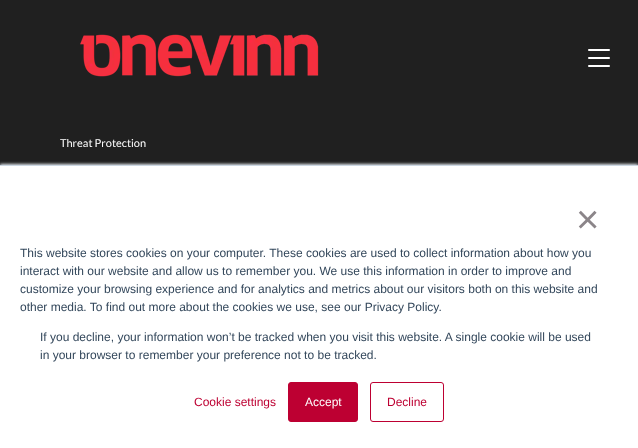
(async () => {
    const canvas = document.querySelector("canvas");
    canvas.width = 638;
    canvas.height = 448;
    const context = canvas.getContext("2d");
    context.miterLimit = 4;
    context.fontKerning = "normal";
    function write(s, x, y, font, color) {
        context.font = font;
        context.fillStyle = color;
        context.fillText(s, x, y);
    }
    function block(x, y, w, h, color) {
        context.fillStyle = color;
        context.fillRect(x, y, w, h);
    }
    async function photo(src, x, y, w, h) {
        const img = new Image();
        img.src = src;
        await img.decode();
        context.drawImage(img, x, y, w, h);
    }

    block(0, 0, 638, 448, "rgb(32, 32, 32)");
    await photo("media/1.png", 80, 34, 239, 43);
    await photo("media/2.png", 588, 49, 22, 18);
    write("Threat Protection", 60, 147, "11px Lato", "rgb(255, 255, 255)");
    context.fillStyle = "rgb(234, 240, 246)";
    context.filter = "blur(1.5px)";
    context.beginPath();
    context.rect(0, 164, 638, 283);
    context.fill();
    context.filter = "none";
    block(0, 166, 638, 282, "rgb(255, 255, 255)");
    block(0, 165, 638, 1, "rgb(203, 214, 226)");
    write("×", 576, 233, "40px Liberation Sans", "rgb(139, 133, 137)");
    write("This website stores cookies on your computer. These cookies are used to collect information about how you", 20, 257, "12px Liberation Sans", "rgb(51, 71, 91)");
    write("interact with our website and allow us to remember you. We use this information in order to improve and", 20, 275, "12px Liberation Sans", "rgb(51, 71, 91)");
    write("customize your browsing experience and for analytics and metrics about our visitors both on this website and", 20, 293, "12px Liberation Sans", "rgb(51, 71, 91)");
    write("other media. To find out more about the cookies we use, see our Privacy Policy.", 20, 311, "12px Liberation Sans", "rgb(51, 71, 91)");
    write("If you decline, your information won’t be tracked when you visit this website. A single cookie will be used", 40, 341, "12px Liberation Sans", "rgb(51, 71, 91)");
    write("in your browser to remember your preference not to be tracked.", 40, 359, "12px Liberation Sans", "rgb(51, 71, 91)");
    write("Cookie settings", 194, 406, "12px Liberation Sans", "rgb(189, 0, 50)");
    context.beginPath();
    context.roundRect(288.5, 382.5, 69, 39, 2.5);
    context.fill();
    context.strokeStyle = "rgb(189, 0, 50)";
    context.stroke();
    write("Accept", 305, 406, "12px Liberation Sans", "rgb(255, 255, 255)");
    context.beginPath();
    context.roundRect(370.5, 382.5, 73, 39, 2.5);
    context.stroke();
    write("Decline", 387, 406, "12px Liberation Sans", "rgb(189, 0, 50)");
})();
